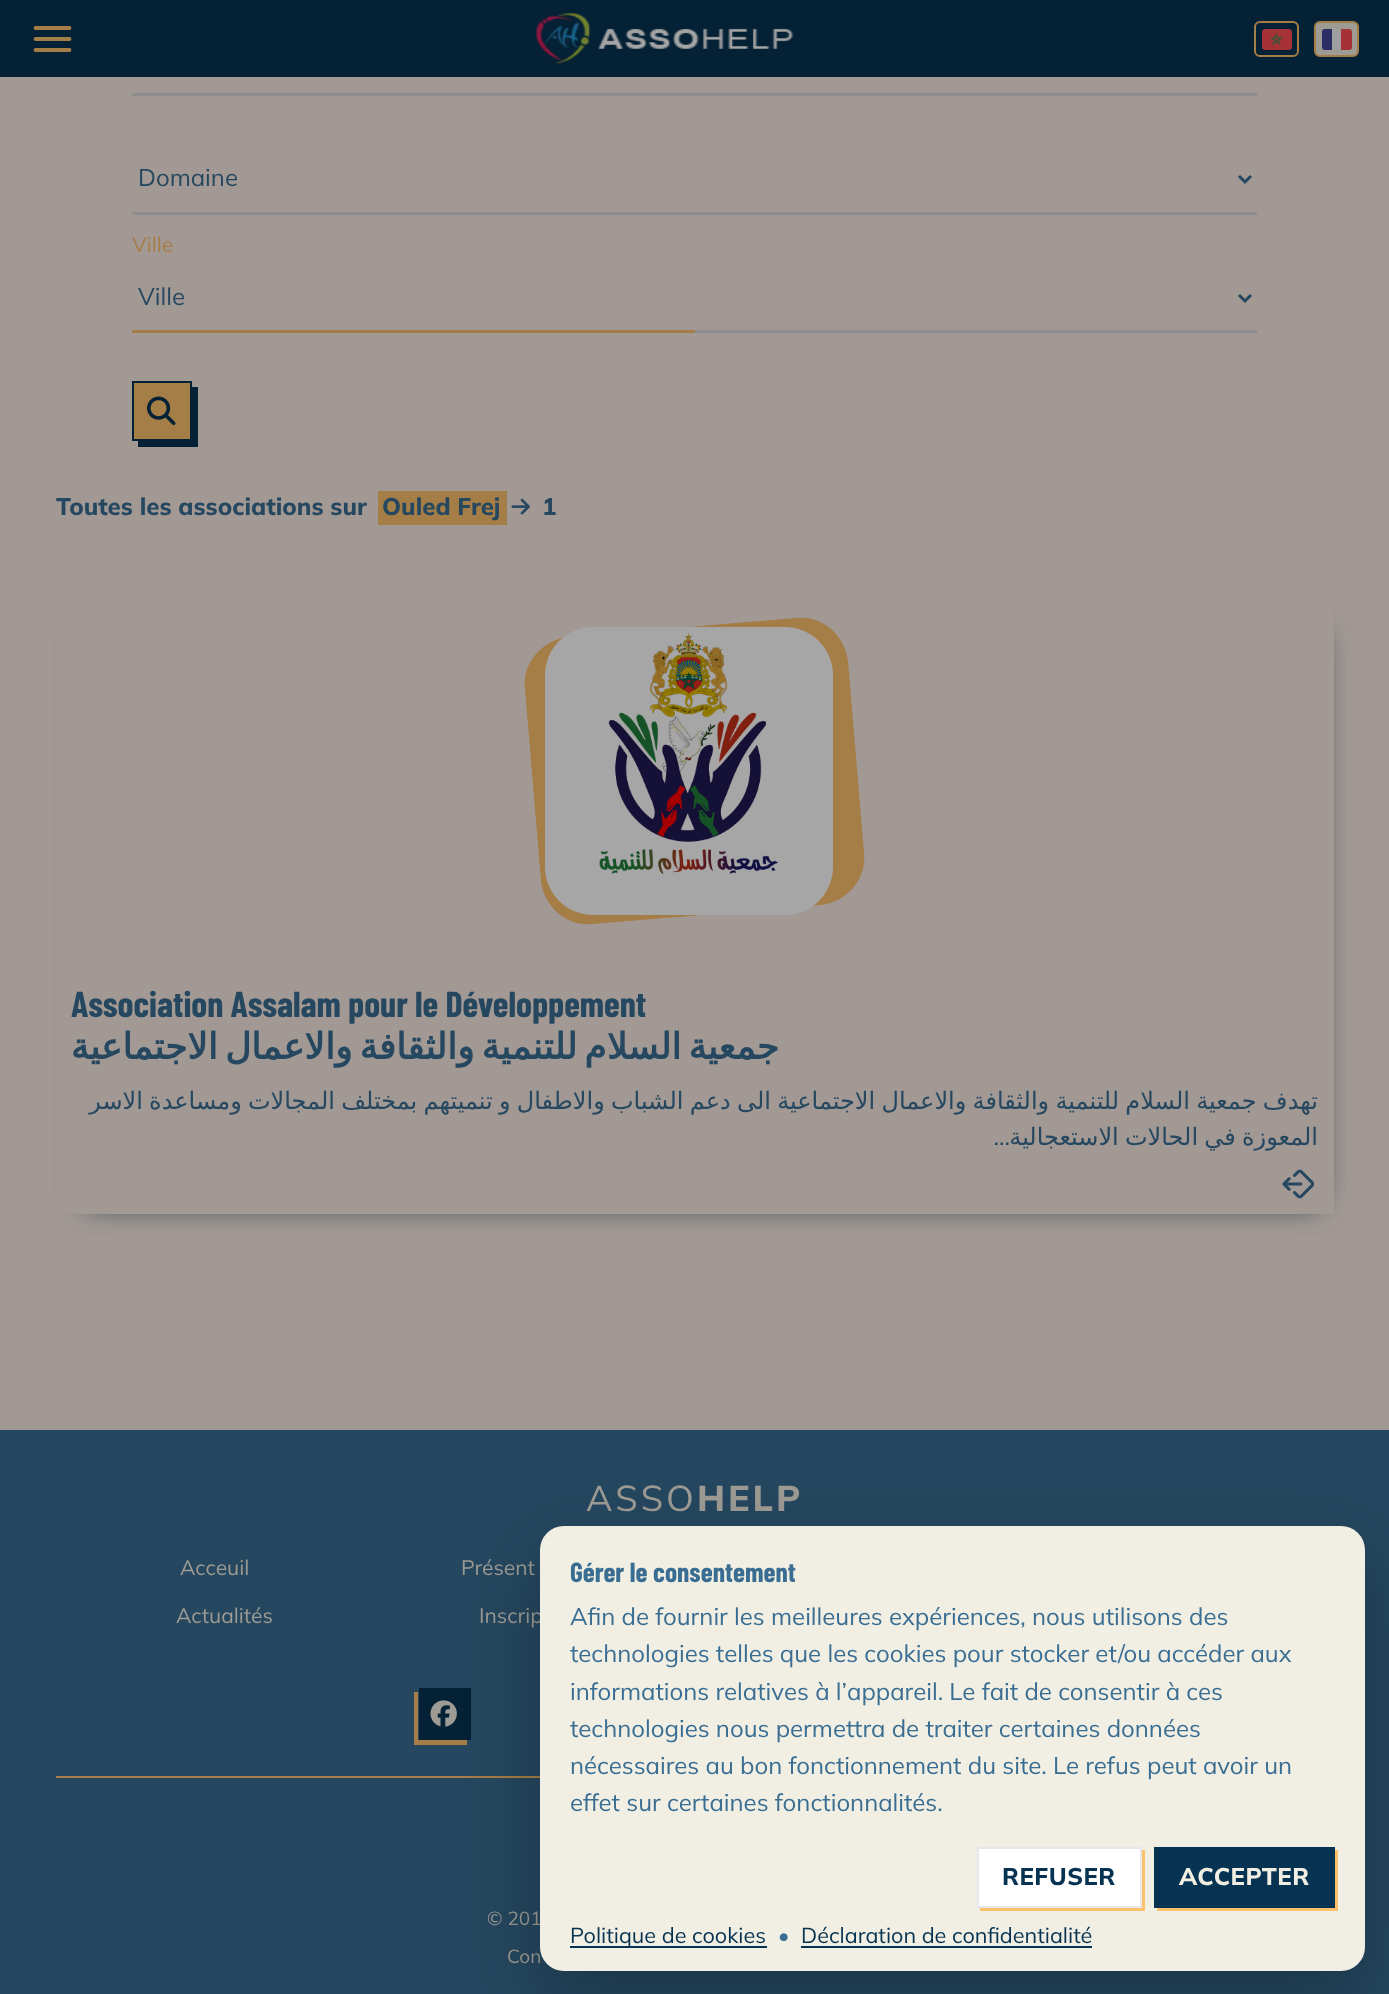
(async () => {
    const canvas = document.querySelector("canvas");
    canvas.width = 1389;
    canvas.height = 1994;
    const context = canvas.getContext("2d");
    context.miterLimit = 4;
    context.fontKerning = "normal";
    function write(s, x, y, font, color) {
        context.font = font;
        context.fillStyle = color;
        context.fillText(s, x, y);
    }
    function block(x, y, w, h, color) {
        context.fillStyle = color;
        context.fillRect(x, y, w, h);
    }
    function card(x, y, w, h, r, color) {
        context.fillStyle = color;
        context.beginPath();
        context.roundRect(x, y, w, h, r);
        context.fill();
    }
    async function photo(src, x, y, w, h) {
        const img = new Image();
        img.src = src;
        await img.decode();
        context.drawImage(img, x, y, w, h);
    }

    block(0, 0, 1389, 1994, "rgb(162, 153, 149)");
    block(0, 0, 1389, 77, "rgb(4, 33, 53)");
    context.beginPath();
    context.moveTo(35.5, 39);
    context.lineTo(69.5, 39);
    context.moveTo(35.5, 28);
    context.lineTo(69.5, 28);
    context.moveTo(35.5, 50);
    context.lineTo(69.5, 50);
    context.strokeStyle = "rgb(165, 125, 70)";
    context.lineWidth = 3.8;
    context.lineCap = "round";
    context.lineJoin = "round";
    context.stroke();
    await photo("media/1.png", 536, 13, 258, 51);
    context.beginPath();
    context.roundRect(1255, 22, 43, 34, 5);
    context.lineWidth = 2;
    context.lineJoin = "miter";
    context.stroke();
    await photo("media/2.png", 1262, 29, 30, 21);
    context.fillStyle = "rgb(157, 155, 148)";
    context.beginPath();
    context.roundRect(1315, 22, 43, 34, 5);
    context.fill();
    context.stroke();
    context.fillStyle = "rgb(42, 46, 101)";
    context.beginPath();
    context.roundRect(1322, 29, 10, 21, [3, 0, 0, 3]);
    context.fill();
    block(1332, 29, 9, 21, "rgb(159, 159, 159)");
    context.fillStyle = "rgb(166, 49, 55)";
    context.beginPath();
    context.roundRect(1341, 29, 11, 21, [0, 3, 3, 0]);
    context.fill();
    block(132, 93, 1125, 3, "rgb(141, 141, 141)");
    block(132, 212, 1125, 3, "rgb(141, 141, 141)");
    context.beginPath();
    context.moveTo(1239, 176);
    context.lineTo(1245, 182);
    context.lineTo(1251, 176);
    context.strokeStyle = "rgb(37, 71, 95)";
    context.lineWidth = 3;
    context.lineCap = "butt";
    context.stroke();
    write("Domaine", 138, 186, "24px Mulish", "rgb(37, 71, 95)");
    write("Ville", 132, 252, "21px Mulish", "rgb(165, 125, 70)");
    block(695, 330, 562, 3, "rgb(141, 141, 141)");
    context.beginPath();
    context.moveTo(1239, 295);
    context.lineTo(1245, 301);
    context.lineTo(1251, 295);
    context.stroke();
    write("Ville", 138, 305, "24px Mulish", "rgb(37, 71, 95)");
    block(132, 330, 563, 3, "rgb(165, 125, 70)");
    context.fillStyle = "rgb(4, 33, 53)";
    context.beginPath();
    context.moveTo(138, 441);
    context.lineTo(138, 447);
    context.lineTo(198, 447);
    context.lineTo(198, 387);
    context.lineTo(192, 387);
    context.lineTo(192, 441);
    context.closePath();
    context.fill();
    context.fillStyle = "rgb(165, 125, 70)";
    context.beginPath();
    context.rect(133, 382, 58, 58);
    context.fill();
    context.strokeStyle = "rgb(4, 33, 53)";
    context.lineWidth = 2;
    context.stroke();
    await photo("media/3.png", 147, 396, 29, 29);
    write("Toutes les associations sur", 56, 515, "800 24px Mulish", "rgb(37, 71, 95)");
    block(378, 491, 129, 34, "rgb(165, 125, 70)");
    write("Ouled Frej", 382, 515, "800 24px Mulish", "rgb(37, 71, 95)");
    await photo("media/4.png", 511, 498, 19, 17);
    write("1", 542, 515, "800 24px Mulish", "rgb(37, 71, 95)");
    context.save();
    context.beginPath();
    context.moveTo(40, 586);
    context.lineTo(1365, 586);
    context.lineTo(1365, 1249);
    context.lineTo(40, 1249);
    context.closePath();
    context.moveTo(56, 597);
    context.lineTo(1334, 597);
    context.lineTo(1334, 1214);
    context.lineTo(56, 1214);
    context.closePath();
    context.clip("evenodd");
    context.fillStyle = "rgb(4, 33, 53)";
    context.filter = "blur(15px)";
    context.beginPath();
    context.rect(86, 632, 1233, 571);
    context.fill();
    context.filter = "none";
    context.restore();
    context.fillStyle = "rgb(165, 125, 70)";
    context.beginPath();
    context.moveTo(568, 637);
    context.lineTo(796, 618);
    context.bezierCurveTo(822, 615, 845, 635, 848, 661);
    context.lineTo(864, 853);
    context.bezierCurveTo(867, 879, 847, 902, 821, 905);
    context.lineTo(593, 924);
    context.bezierCurveTo(567, 927, 544, 907, 541, 881);
    context.lineTo(525, 689);
    context.bezierCurveTo(522, 663, 542, 640, 568, 637);
    context.closePath();
    context.fill();
    card(545, 627, 288, 288, 48, "rgb(166, 166, 166)");
    await photo("media/5.png", 599, 633, 179, 241);
    write("Association Assalam pour le Développement", 71, 1017, "bold 36px Barlow Condensed", "rgb(37, 71, 95)");
    context.wordSpacing = "-4.25px";
    context.direction = "rtl";
    write("جمعية السلام للتنمية والثقافة والاعمال الاجتماعية", 779, 1059, "bold 36px DejaVu Sans", "rgb(37, 71, 95)");
    context.wordSpacing = "-1.4px";
    write("تهدف جمعية السلام للتنمية والثقافة والاعمال الاجتماعية الى دعم الشباب والاطفال و تنميتهم بمختلف المجالات ومساعدة الاسر", 1318, 1109, "24px DejaVu Sans", "rgb(37, 71, 95)");
    context.wordSpacing = "0px";
    write("...", 1010, 1145, "24px Mulish", "rgb(37, 71, 95)");
    context.wordSpacing = "-1.4px";
    write("المعوزة في الحالات الاستعجالية", 1318, 1145, "24px DejaVu Sans", "rgb(37, 71, 95)");
    await photo("media/6.png", 1282, 1169, 33, 30);
    block(0, 1430, 1389, 564, "rgb(37, 71, 95)");
    context.letterSpacing = "3px";
    context.wordSpacing = "0px";
    context.direction = "ltr";
    write("ASSO", 586, 1511, "36px Mulish", "rgb(157, 155, 148)");
    write("HELP", 697, 1511, "800 36px Mulish", "rgb(157, 155, 148)");
    context.letterSpacing = "0px";
    write("Acceuil", 180, 1575, "21px Mulish", "rgb(157, 155, 148)");
    write("Présent", 461, 1575, "21px Mulish", "rgb(157, 155, 148)");
    write("Actualités", 176, 1623, "21px Mulish", "rgb(157, 155, 148)");
    write("Inscrip", 479, 1623, "21px Mulish", "rgb(157, 155, 148)");
    context.fillStyle = "rgb(165, 125, 70)";
    context.beginPath();
    context.moveTo(414, 1692);
    context.lineTo(414, 1745);
    context.lineTo(467, 1745);
    context.lineTo(467, 1740);
    context.lineTo(418, 1740);
    context.lineTo(418, 1692);
    context.closePath();
    context.fill();
    block(419, 1688, 52, 52, "rgb(4, 33, 53)");
    await photo("media/7.png", 430, 1700, 27, 27);
    block(56, 1776, 484, 2, "rgb(165, 125, 70)");
    write("© 201", 487, 1925, "19px Mulish", "rgb(157, 155, 148)");
    write("Con", 507, 1963, "19px Mulish", "rgb(157, 155, 148)");
    context.fillStyle = "rgba(0, 0, 0, 0.25)";
    context.filter = "blur(37.5px)";
    context.beginPath();
    context.roundRect(540, 1556, 825, 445, 24);
    context.fill();
    context.filter = "none";
    card(540, 1526, 825, 445, 24, "rgb(241, 239, 228)");
    write("Gérer le consentement", 570, 1582, "bold 27.5px Barlow Condensed", "rgb(57, 109, 146)");
    write("Afin de fournir les meilleures expériences, nous utilisons des", 570, 1625, "24px Mulish", "rgb(57, 109, 146)");
    write("technologies telles que les cookies pour stocker et/ou accéder aux", 570, 1662, "24px Mulish", "rgb(57, 109, 146)");
    write("informations relatives à l’appareil. Le fait de consentir à ces", 570, 1700, "24px Mulish", "rgb(57, 109, 146)");
    write("technologies nous permettra de traiter certaines données", 570, 1737, "24px Mulish", "rgb(57, 109, 146)");
    write("nécessaires au bon fonctionnement du site. Le refus peut avoir un", 570, 1774, "24px Mulish", "rgb(57, 109, 146)");
    write("effet sur certaines fonctionnalités.", 570, 1811, "24px Mulish", "rgb(57, 109, 146)");
    context.fillStyle = "rgb(254, 193, 107)";
    context.beginPath();
    context.moveTo(980, 1908);
    context.lineTo(980, 1911);
    context.lineTo(1145, 1911);
    context.lineTo(1145, 1850);
    context.lineTo(1142, 1850);
    context.lineTo(1142, 1908);
    context.closePath();
    context.fill();
    context.fillStyle = "rgb(255, 255, 255)";
    context.beginPath();
    context.rect(978, 1848, 163, 59);
    context.fill();
    context.strokeStyle = "rgb(229, 231, 235)";
    context.stroke();
    context.letterSpacing = "0.5px";
    write("REFUSER", 1002, 1885, "800 24px Mulish", "rgb(6, 51, 81)");
    context.fillStyle = "rgb(254, 193, 107)";
    context.beginPath();
    context.moveTo(1157, 1908);
    context.lineTo(1157, 1911);
    context.lineTo(1338, 1911);
    context.lineTo(1338, 1850);
    context.lineTo(1335, 1850);
    context.lineTo(1335, 1908);
    context.closePath();
    context.fill();
    block(1154, 1847, 181, 61, "rgb(6, 51, 81)");
    write("ACCEPTER", 1179, 1885, "800 24px Mulish", "rgb(241, 239, 228)");
    block(570, 1946, 197, 2, "rgb(6, 51, 81)");
    context.letterSpacing = "0px";
    write("Politique de cookies", 570, 1943, "21.6px Mulish", "rgb(6, 51, 81)");
    write("•", 778, 1943, "21.6px Mulish", "rgb(57, 109, 146)");
    write("Déclaration de confidentialité", 801, 1943, "21.6px Mulish", "rgb(6, 51, 81)");
    block(801, 1946, 291, 2, "rgb(6, 51, 81)");
})();
